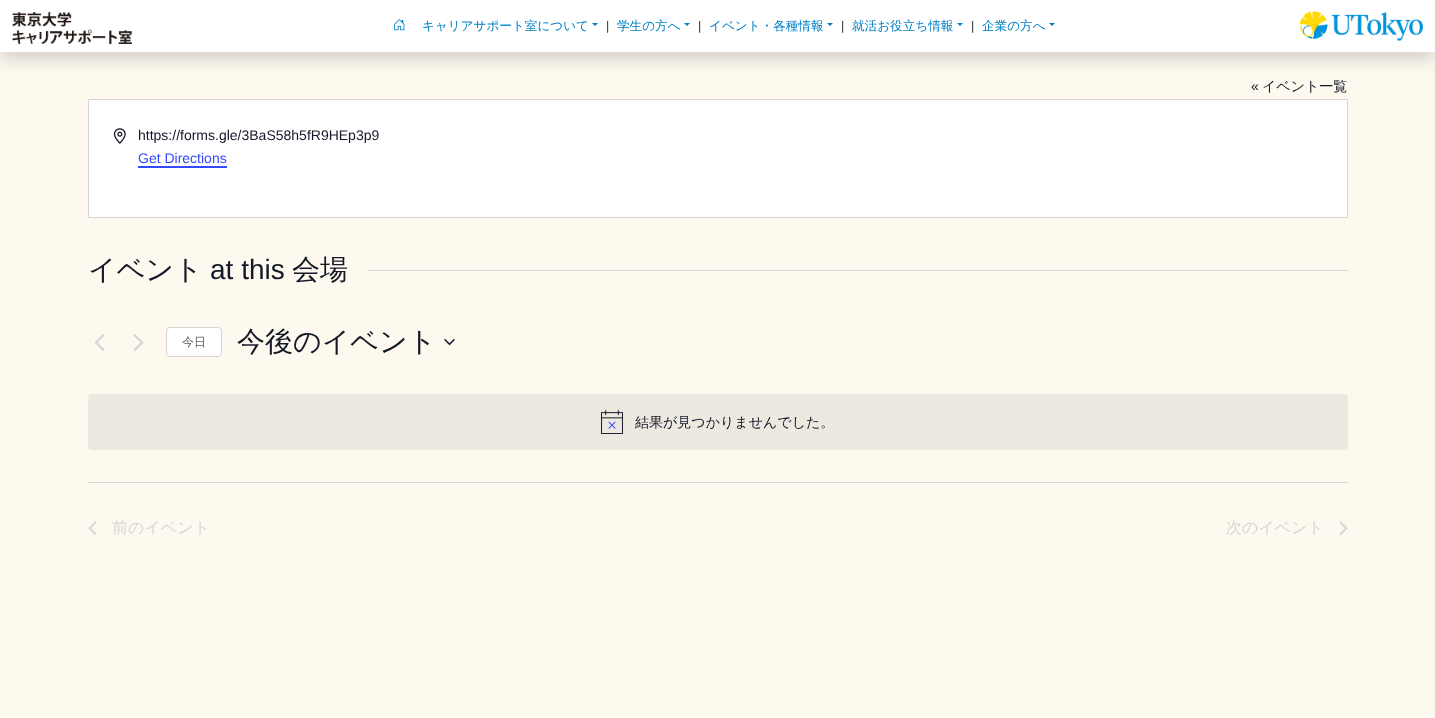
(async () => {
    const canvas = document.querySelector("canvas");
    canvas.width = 1435;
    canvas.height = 718;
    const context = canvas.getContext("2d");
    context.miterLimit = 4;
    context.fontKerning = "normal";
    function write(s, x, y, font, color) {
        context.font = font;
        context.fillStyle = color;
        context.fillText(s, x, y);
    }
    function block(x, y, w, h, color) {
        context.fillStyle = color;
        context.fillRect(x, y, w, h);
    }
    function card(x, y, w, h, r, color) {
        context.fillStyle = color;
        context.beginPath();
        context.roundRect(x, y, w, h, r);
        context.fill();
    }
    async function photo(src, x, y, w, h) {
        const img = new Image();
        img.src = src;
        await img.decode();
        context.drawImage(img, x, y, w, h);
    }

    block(0, 0, 1435, 718, "rgb(253, 249, 239)");
    context.fillStyle = "rgba(0, 0, 0, 0.15)";
    context.filter = "blur(8px)";
    context.beginPath();
    context.rect(0, 8, 1435, 52);
    context.fill();
    context.filter = "none";
    block(0, 0, 1435, 52, "rgb(255, 255, 255)");
    await photo("media/1.png", 12, 12, 120, 32);
    await photo("media/2.png", 394, 19, 11, 12);
    write("キャリアサポート室について", 422, 30, "500 12.6px WenQuanYi Zen Hei", "rgb(0, 127, 197)");
    context.beginPath();
    context.moveTo(592, 23);
    context.lineTo(598, 23);
    context.lineTo(595, 26);
    context.closePath();
    context.fill();
    write("|", 606, 30, "12.6px Liberation Sans", "rgb(51, 51, 51)");
    write("学生の方へ", 617, 30, "500 12.6px WenQuanYi Zen Hei", "rgb(0, 127, 197)");
    context.beginPath();
    context.moveTo(684, 23);
    context.lineTo(690, 23);
    context.lineTo(687, 26);
    context.closePath();
    context.fill();
    write("|", 698, 30, "12.6px Liberation Sans", "rgb(51, 51, 51)");
    write("イベント・各種情報", 709, 30, "500 12.6px WenQuanYi Zen Hei", "rgb(0, 127, 197)");
    context.beginPath();
    context.moveTo(827, 23);
    context.lineTo(833, 23);
    context.lineTo(830, 26);
    context.closePath();
    context.fill();
    write("|", 841, 30, "12.6px Liberation Sans", "rgb(51, 51, 51)");
    write("就活お役立ち情報", 852, 30, "500 12.6px WenQuanYi Zen Hei", "rgb(0, 127, 197)");
    context.beginPath();
    context.moveTo(957, 23);
    context.lineTo(963, 23);
    context.lineTo(960, 26);
    context.closePath();
    context.fill();
    write("|", 971, 30, "12.6px Liberation Sans", "rgb(51, 51, 51)");
    write("企業の方へ", 982, 30, "500 12.6px WenQuanYi Zen Hei", "rgb(0, 127, 197)");
    context.beginPath();
    context.moveTo(1049, 23);
    context.lineTo(1055, 23);
    context.lineTo(1052, 26);
    context.closePath();
    context.fill();
    await photo("media/3.png", 1300, 11, 123, 31);
    write("«", 1251, 91, "14px Liberation Sans", "rgb(20, 24, 39)");
    write("イベント一覧", 1262, 91, "500 14px WenQuanYi Zen Hei", "rgb(20, 24, 39)");
    context.fillStyle = "rgb(255, 255, 255)";
    context.beginPath();
    context.rect(88.5, 99.5, 1259, 118);
    context.fill();
    context.strokeStyle = "rgb(213, 213, 213)";
    context.stroke();
    await photo("media/4.png", 113, 128, 13, 16);
    write("https://forms.gle/3BaS58h5fR9HEp3p9", 138, 140, "14px Liberation Sans", "rgb(20, 24, 39)");
    write("Get Directions", 138, 163, "14px Liberation Sans", "rgb(51, 74, 255)");
    block(138, 166, 89, 2, "rgb(51, 74, 255)");
    write("イベント", 88, 279, "500 28px WenQuanYi Zen Hei", "rgb(20, 24, 39)");
    write("at this", 210, 279, "28px Liberation Sans", "rgb(20, 24, 39)");
    write("会場", 292, 279, "500 28px WenQuanYi Zen Hei", "rgb(20, 24, 39)");
    block(368, 270, 980, 1, "rgb(213, 213, 213)");
    await photo("media/5.png", 94, 334, 11, 17);
    await photo("media/6.png", 133, 334, 11, 17);
    context.fillStyle = "rgb(255, 255, 255)";
    context.beginPath();
    context.roundRect(166.5, 327.5, 55, 29, 3.5);
    context.fill();
    context.stroke();
    write("今日", 182, 346, "500 12px WenQuanYi Zen Hei", "rgb(93, 93, 93)");
    write("今後のイベント", 237, 351, "500 28px WenQuanYi Zen Hei", "rgb(20, 24, 39)");
    await photo("media/7.png", 444, 338, 11, 8);
    card(88, 394, 1260, 56, 4, "rgb(237, 233, 225)");
    await photo("media/8.png", 601, 410, 22, 24);
    write("結果が見つかりませんでした。", 635, 427, "500 14px WenQuanYi Zen Hei", "rgb(20, 24, 39)");
    block(88, 482, 1260, 1, "rgb(213, 213, 213)");
    await photo("media/9.png", 88, 521, 9, 14);
    write("前のイベント", 112, 533, "500 16px WenQuanYi Zen Hei", "rgb(213, 213, 213)");
    write("次のイベント", 1226, 533, "500 16px WenQuanYi Zen Hei", "rgb(213, 213, 213)");
    await photo("media/10.png", 1339, 521, 9, 14);
})();
